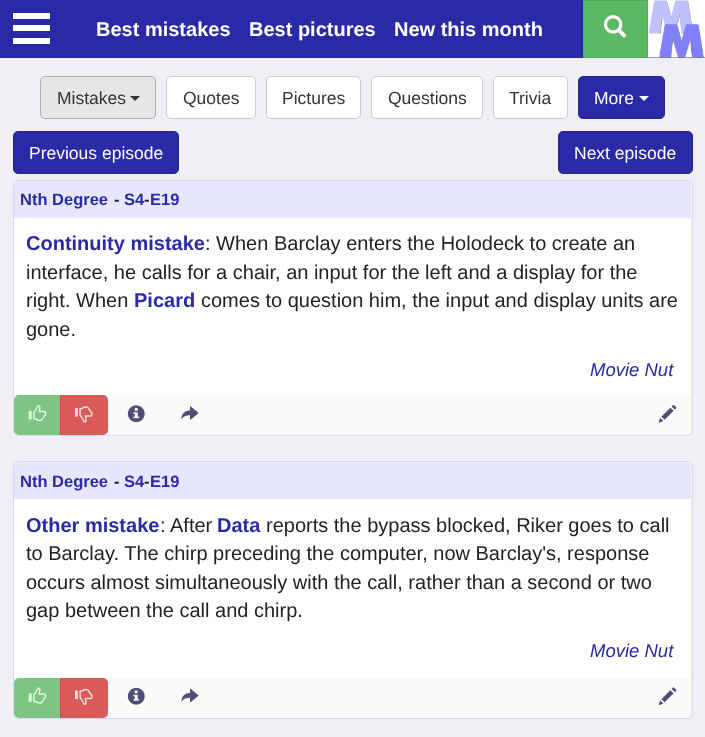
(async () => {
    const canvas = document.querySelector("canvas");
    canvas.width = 705;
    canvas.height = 737;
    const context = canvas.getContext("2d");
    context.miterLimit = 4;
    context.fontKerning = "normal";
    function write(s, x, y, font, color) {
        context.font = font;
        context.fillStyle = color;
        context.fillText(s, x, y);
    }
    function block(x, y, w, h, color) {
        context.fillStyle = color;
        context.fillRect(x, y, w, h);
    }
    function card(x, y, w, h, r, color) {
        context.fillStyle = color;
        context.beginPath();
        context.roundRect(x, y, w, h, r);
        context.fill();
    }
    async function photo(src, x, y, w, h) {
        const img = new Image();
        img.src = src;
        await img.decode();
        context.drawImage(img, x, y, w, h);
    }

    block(0, 0, 705, 737, "rgb(240, 240, 244)");
    block(0, 0, 705, 58, "rgb(42, 42, 166)");
    block(13, 13, 37, 6, "rgb(255, 255, 255)");
    block(13, 25, 37, 6, "rgb(255, 255, 255)");
    block(13, 38, 37, 6, "rgb(255, 255, 255)");
    write("Best mistakes", 96, 36, "bold 20px Liberation Sans", "rgb(255, 255, 255)");
    write("Best pictures", 249, 36, "bold 20px Liberation Sans", "rgb(255, 255, 255)");
    write("New this month", 394, 36, "bold 20px Liberation Sans", "rgb(255, 255, 255)");
    context.fillStyle = "rgb(92, 184, 100)";
    context.beginPath();
    context.rect(583.5, 0.5, 64, 57);
    context.fill();
    context.strokeStyle = "rgb(76, 174, 85)";
    context.stroke();
    await photo("media/1.png", 603, 15, 24, 23);
    await photo("media/2.png", 648, 0, 57, 58);
    context.fillStyle = "rgb(230, 230, 230)";
    context.beginPath();
    context.roundRect(40.5, 76.5, 115, 42, 4.5);
    context.fill();
    context.strokeStyle = "rgb(173, 173, 173)";
    context.stroke();
    write("Mistakes", 57, 104, "17.5px Liberation Sans", "rgb(51, 51, 51)");
    context.beginPath();
    context.moveTo(130, 96);
    context.lineTo(140, 96);
    context.lineTo(135, 101);
    context.closePath();
    context.fill();
    context.fillStyle = "rgb(255, 255, 255)";
    context.beginPath();
    context.roundRect(166.5, 76.5, 89, 42, 4.5);
    context.fill();
    context.strokeStyle = "rgb(204, 204, 204)";
    context.stroke();
    write("Quotes", 183, 104, "17.5px Liberation Sans", "rgb(51, 51, 51)");
    context.fillStyle = "rgb(255, 255, 255)";
    context.beginPath();
    context.roundRect(266.5, 76.5, 94, 42, 4.5);
    context.fill();
    context.stroke();
    write("Pictures", 282, 104, "17.5px Liberation Sans", "rgb(51, 51, 51)");
    context.fillStyle = "rgb(255, 255, 255)";
    context.beginPath();
    context.roundRect(371.5, 76.5, 111, 42, 4.5);
    context.fill();
    context.stroke();
    write("Questions", 388, 104, "17.5px Liberation Sans", "rgb(51, 51, 51)");
    context.fillStyle = "rgb(255, 255, 255)";
    context.beginPath();
    context.roundRect(493.5, 76.5, 74, 42, 4.5);
    context.fill();
    context.stroke();
    write("Trivia", 509, 104, "17.5px Liberation Sans", "rgb(51, 51, 51)");
    context.fillStyle = "rgb(42, 42, 166)";
    context.beginPath();
    context.roundRect(578.5, 76.5, 86, 42, 4.5);
    context.fill();
    context.strokeStyle = "rgb(37, 37, 146)";
    context.stroke();
    write("More", 594, 104, "17.5px Liberation Sans", "rgb(255, 255, 255)");
    context.beginPath();
    context.moveTo(639, 96);
    context.lineTo(649, 96);
    context.lineTo(644, 101);
    context.closePath();
    context.fill();
    context.fillStyle = "rgb(42, 42, 166)";
    context.beginPath();
    context.roundRect(13.5, 131.5, 165, 42, 4.5);
    context.fill();
    context.stroke();
    write("Previous episode", 29, 159, "17.5px Liberation Sans", "rgb(255, 255, 255)");
    context.fillStyle = "rgb(42, 42, 166)";
    context.beginPath();
    context.roundRect(558.5, 131.5, 134, 42, 4.5);
    context.fill();
    context.stroke();
    write("Next episode", 574, 159, "17.5px Liberation Sans", "rgb(255, 255, 255)");
    context.beginPath();
    context.roundRect(13.5, 180.5, 679, 255, 4.5);
    context.strokeStyle = "rgb(215, 215, 255)";
    context.stroke();
    card(14, 181, 677, 254, 5, "rgb(255, 255, 255)");
    context.fillStyle = "rgb(230, 230, 254)";
    context.beginPath();
    context.roundRect(14, 181, 677, 37, [5, 5, 0, 0]);
    context.fill();
    write("Nth Degree", 20, 205, "bold 16.5px Liberation Sans", "rgb(42, 42, 166)");
    write("-", 114, 205, "bold 16.5px Liberation Sans", "rgb(34, 34, 34)");
    write("S4", 124, 205, "bold 16.5px Liberation Sans", "rgb(42, 42, 166)");
    write("-", 144, 205, "bold 16.5px Liberation Sans", "rgb(34, 34, 34)");
    write("E19", 150, 205, "bold 16.5px Liberation Sans", "rgb(42, 42, 166)");
    write("Continuity mistake", 26, 250, "bold 20px Liberation Sans", "rgb(42, 42, 166)");
    write(": When Barclay enters the Holodeck to create an", 205, 250, "20px Liberation Sans", "rgb(34, 34, 34)");
    write("interface, he calls for a chair, an input for the left and a display for the", 26, 279, "20px Liberation Sans", "rgb(34, 34, 34)");
    write("right. When", 26, 307, "20px Liberation Sans", "rgb(34, 34, 34)");
    write("Picard", 134, 307, "bold 20px Liberation Sans", "rgb(42, 42, 166)");
    write("comes to question him, the input and display units are", 201, 307, "20px Liberation Sans", "rgb(34, 34, 34)");
    write("gone.", 26, 336, "20px Liberation Sans", "rgb(34, 34, 34)");
    write("Movie Nut", 590, 376, "italic 18.5px Liberation Sans", "rgb(42, 42, 166)");
    context.fillStyle = "rgb(250, 250, 250)";
    context.beginPath();
    context.roundRect(14, 395, 677, 40, [0, 0, 5, 5]);
    context.fill();
    context.fillStyle = "rgb(124, 197, 130)";
    context.beginPath();
    context.roundRect(14, 395, 47, 40, [5, 0, 0, 5]);
    context.fill();
    await photo("media/3.png", 28, 405, 19, 17);
    context.fillStyle = "rgba(210, 50, 46, 0.8)";
    context.beginPath();
    context.roundRect(60, 395, 48, 40, [0, 5, 5, 0]);
    context.fill();
    await photo("media/4.png", 75, 406, 18, 17);
    await photo("media/5.png", 127, 405, 18, 18);
    await photo("media/6.png", 181, 406, 18, 14);
    await photo("media/7.png", 658, 404, 19, 19);
    context.beginPath();
    context.roundRect(13.5, 461.5, 679, 257, 4.5);
    context.stroke();
    card(14, 463, 677, 255, 5, "rgb(255, 255, 255)");
    context.fillStyle = "rgb(230, 230, 254)";
    context.beginPath();
    context.roundRect(14, 463, 677, 36, [5, 5, 0, 0]);
    context.fill();
    write("Nth Degree", 20, 487, "bold 16.5px Liberation Sans", "rgb(42, 42, 166)");
    write("-", 114, 487, "bold 16.5px Liberation Sans", "rgb(34, 34, 34)");
    write("S4", 124, 487, "bold 16.5px Liberation Sans", "rgb(42, 42, 166)");
    write("-", 144, 487, "bold 16.5px Liberation Sans", "rgb(34, 34, 34)");
    write("E19", 150, 487, "bold 16.5px Liberation Sans", "rgb(42, 42, 166)");
    write("Other mistake", 26, 532, "bold 20px Liberation Sans", "rgb(42, 42, 166)");
    write(":", 160, 532, "20px Liberation Sans", "rgb(34, 34, 34)");
    write("After", 170, 532, "20px Liberation Sans", "rgb(34, 34, 34)");
    write("Data", 217, 532, "bold 20px Liberation Sans", "rgb(42, 42, 166)");
    write("reports the bypass blocked, Riker goes to call", 266, 532, "20px Liberation Sans", "rgb(34, 34, 34)");
    write("to Barclay. The chirp preceding the computer, now Barclay's, response", 26, 560, "20px Liberation Sans", "rgb(34, 34, 34)");
    write("occurs almost simultaneously with the call, rather than a second or two", 26, 589, "20px Liberation Sans", "rgb(34, 34, 34)");
    write("gap between the call and chirp.", 26, 617, "20px Liberation Sans", "rgb(34, 34, 34)");
    write("Movie Nut", 590, 657, "italic 18.5px Liberation Sans", "rgb(42, 42, 166)");
    context.fillStyle = "rgb(250, 250, 250)";
    context.beginPath();
    context.roundRect(14, 678, 677, 40, [0, 0, 5, 5]);
    context.fill();
    context.fillStyle = "rgb(124, 197, 130)";
    context.beginPath();
    context.roundRect(14, 678, 47, 40, [5, 0, 0, 5]);
    context.fill();
    await photo("media/8.png", 28, 687, 19, 17);
    context.fillStyle = "rgba(210, 50, 46, 0.8)";
    context.beginPath();
    context.roundRect(60, 678, 48, 40, [0, 5, 5, 0]);
    context.fill();
    await photo("media/9.png", 75, 688, 18, 17);
    await photo("media/10.png", 127, 687, 18, 18);
    await photo("media/11.png", 181, 688, 18, 15);
    await photo("media/12.png", 658, 687, 19, 19);
})();
